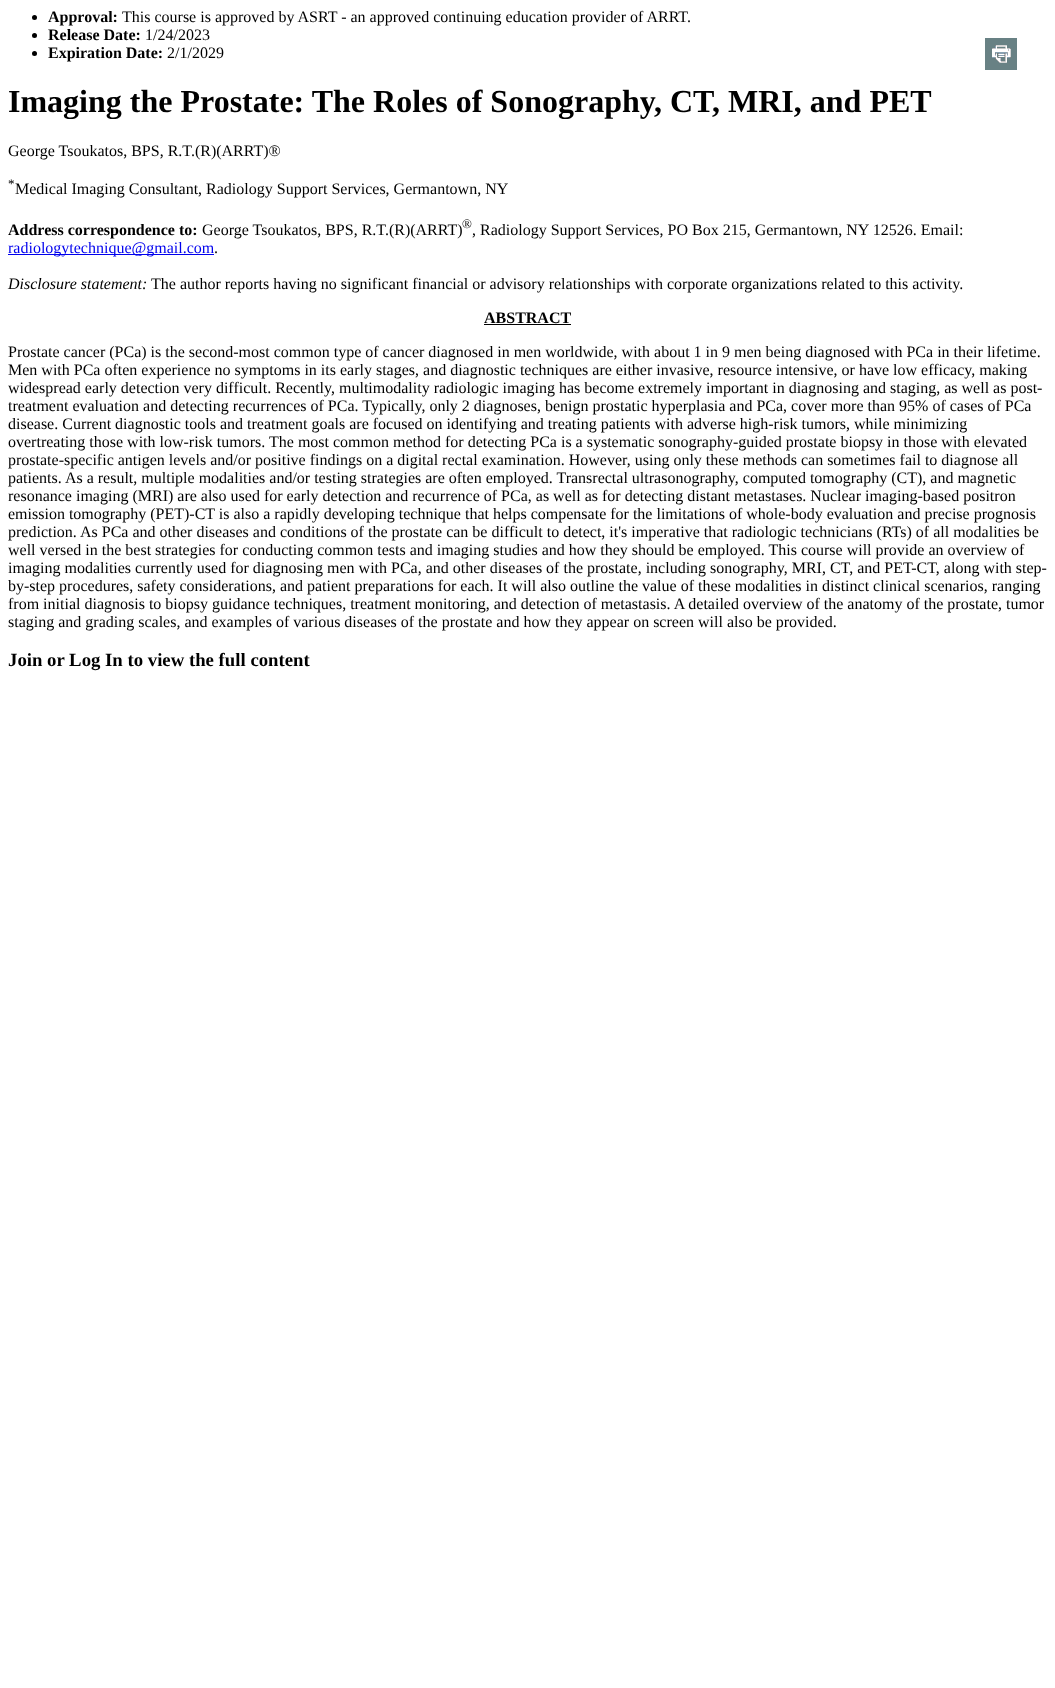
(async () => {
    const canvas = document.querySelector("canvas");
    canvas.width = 1055;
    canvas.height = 1688;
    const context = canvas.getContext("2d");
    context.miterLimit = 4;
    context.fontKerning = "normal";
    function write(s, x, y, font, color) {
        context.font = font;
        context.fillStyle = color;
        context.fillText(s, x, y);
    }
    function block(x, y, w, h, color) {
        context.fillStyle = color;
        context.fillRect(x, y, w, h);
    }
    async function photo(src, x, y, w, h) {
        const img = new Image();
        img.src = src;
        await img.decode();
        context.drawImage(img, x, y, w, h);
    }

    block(0, 0, 1055, 1688, "rgb(255, 255, 255)");
    context.fillStyle = "rgb(0, 0, 0)";
    context.beginPath();
    context.arc(34.5, 17.5, 2.5, 0, Math.PI * 2);
    context.fill();
    write("Approval:", 48, 22, "bold 16px Liberation Serif", "rgb(0, 0, 0)");
    write("This course is approved by ASRT - an approved continuing education provider of ARRT.", 122, 22, "16px Liberation Serif", "rgb(0, 0, 0)");
    context.beginPath();
    context.arc(34.5, 35.5, 2.5, 0, Math.PI * 2);
    context.fill();
    write("Release Date:", 48, 40, "bold 16px Liberation Serif", "rgb(0, 0, 0)");
    write("1/24/2023", 145, 40, "16px Liberation Serif", "rgb(0, 0, 0)");
    context.beginPath();
    context.arc(34.5, 53.5, 2.5, 0, Math.PI * 2);
    context.fill();
    write("Expiration Date:", 48, 58, "bold 16px Liberation Serif", "rgb(0, 0, 0)");
    write("2/1/2029", 167, 58, "16px Liberation Serif", "rgb(0, 0, 0)");
    await photo("media/1.png", 985, 38, 32, 32);
    write("Imaging the Prostate: The Roles of Sonography, CT, MRI, and PET", 8, 112, "bold 32px Liberation Serif", "rgb(0, 0, 0)");
    write("George Tsoukatos, BPS, R.T.(R)(ARRT)®", 8, 156, "16px Liberation Serif", "rgb(0, 0, 0)");
    write("*", 8, 188, "13px Liberation Serif", "rgb(0, 0, 0)");
    write("Medical Imaging Consultant, Radiology Support Services, Germantown, NY", 15, 194, "16px Liberation Serif", "rgb(0, 0, 0)");
    write("Address correspondence to:", 8, 235, "bold 16px Liberation Serif", "rgb(0, 0, 0)");
    write("George Tsoukatos, BPS, R.T.(R)(ARRT)", 202, 235, "16px Liberation Serif", "rgb(0, 0, 0)");
    write("®", 462, 228, "13px Liberation Serif", "rgb(0, 0, 0)");
    write(", Radiology Support Services, PO Box 215, Germantown, NY 12526. Email:", 472, 235, "16px Liberation Serif", "rgb(0, 0, 0)");
    block(8, 254, 206, 1, "rgb(0, 0, 238)");
    write("radiologytechnique@gmail.com", 8, 253, "16px Liberation Serif", "rgb(0, 0, 238)");
    write(".", 214, 253, "16px Liberation Serif", "rgb(0, 0, 0)");
    write("Disclosure statement:", 8, 289, "italic 16px Liberation Serif", "rgb(0, 0, 0)");
    write("The author reports having no significant financial or advisory relationships with corporate organizations related to this activity.", 151, 289, "16px Liberation Serif", "rgb(0, 0, 0)");
    write("ABSTRACT", 484, 323, "bold 16px Liberation Serif", "rgb(0, 0, 0)");
    block(484, 324, 87, 1, "rgb(0, 0, 0)");
    write("Prostate cancer (PCa) is the second-most common type of cancer diagnosed in men worldwide, with about 1 in 9 men being diagnosed with PCa in their lifetime.", 8, 357, "16px Liberation Serif", "rgb(0, 0, 0)");
    write("Men with PCa often experience no symptoms in its early stages, and diagnostic techniques are either invasive, resource intensive, or have low efficacy, making", 8, 375, "16px Liberation Serif", "rgb(0, 0, 0)");
    write("widespread early detection very difficult. Recently, multimodality radiologic imaging has become extremely important in diagnosing and staging, as well as post-", 8, 393, "16px Liberation Serif", "rgb(0, 0, 0)");
    write("treatment evaluation and detecting recurrences of PCa. Typically, only 2 diagnoses, benign prostatic hyperplasia and PCa, cover more than 95% of cases of PCa", 8, 411, "16px Liberation Serif", "rgb(0, 0, 0)");
    write("disease. Current diagnostic tools and treatment goals are focused on identifying and treating patients with adverse high-risk tumors, while minimizing", 8, 429, "16px Liberation Serif", "rgb(0, 0, 0)");
    write("overtreating those with low-risk tumors. The most common method for detecting PCa is a systematic sonography-guided prostate biopsy in those with elevated", 8, 447, "16px Liberation Serif", "rgb(0, 0, 0)");
    write("prostate-specific antigen levels and/or positive findings on a digital rectal examination. However, using only these methods can sometimes fail to diagnose all", 8, 465, "16px Liberation Serif", "rgb(0, 0, 0)");
    write("patients. As a result, multiple modalities and/or testing strategies are often employed. Transrectal ultrasonography, computed tomography (CT), and magnetic", 8, 483, "16px Liberation Serif", "rgb(0, 0, 0)");
    write("resonance imaging (MRI) are also used for early detection and recurrence of PCa, as well as for detecting distant metastases. Nuclear imaging-based positron", 8, 501, "16px Liberation Serif", "rgb(0, 0, 0)");
    write("emission tomography (PET)-CT is also a rapidly developing technique that helps compensate for the limitations of whole-body evaluation and precise prognosis", 8, 519, "16px Liberation Serif", "rgb(0, 0, 0)");
    write("prediction. As PCa and other diseases and conditions of the prostate can be difficult to detect, it's imperative that radiologic technicians (RTs) of all modalities be", 8, 537, "16px Liberation Serif", "rgb(0, 0, 0)");
    write("well versed in the best strategies for conducting common tests and imaging studies and how they should be employed. This course will provide an overview of", 8, 555, "16px Liberation Serif", "rgb(0, 0, 0)");
    write("imaging modalities currently used for diagnosing men with PCa, and other diseases of the prostate, including sonography, MRI, CT, and PET-CT, along with step-", 8, 573, "16px Liberation Serif", "rgb(0, 0, 0)");
    write("by-step procedures, safety considerations, and patient preparations for each. It will also outline the value of these modalities in distinct clinical scenarios, ranging", 8, 591, "16px Liberation Serif", "rgb(0, 0, 0)");
    write("from initial diagnosis to biopsy guidance techniques, treatment monitoring, and detection of metastasis. A detailed overview of the anatomy of the prostate, tumor", 8, 609, "16px Liberation Serif", "rgb(0, 0, 0)");
    write("staging and grading scales, and examples of various diseases of the prostate and how they appear on screen will also be provided.", 8, 627, "16px Liberation Serif", "rgb(0, 0, 0)");
    write("Join or Log In to view the full content", 8, 666, "bold 18.75px Liberation Serif", "rgb(0, 0, 0)");
})();
